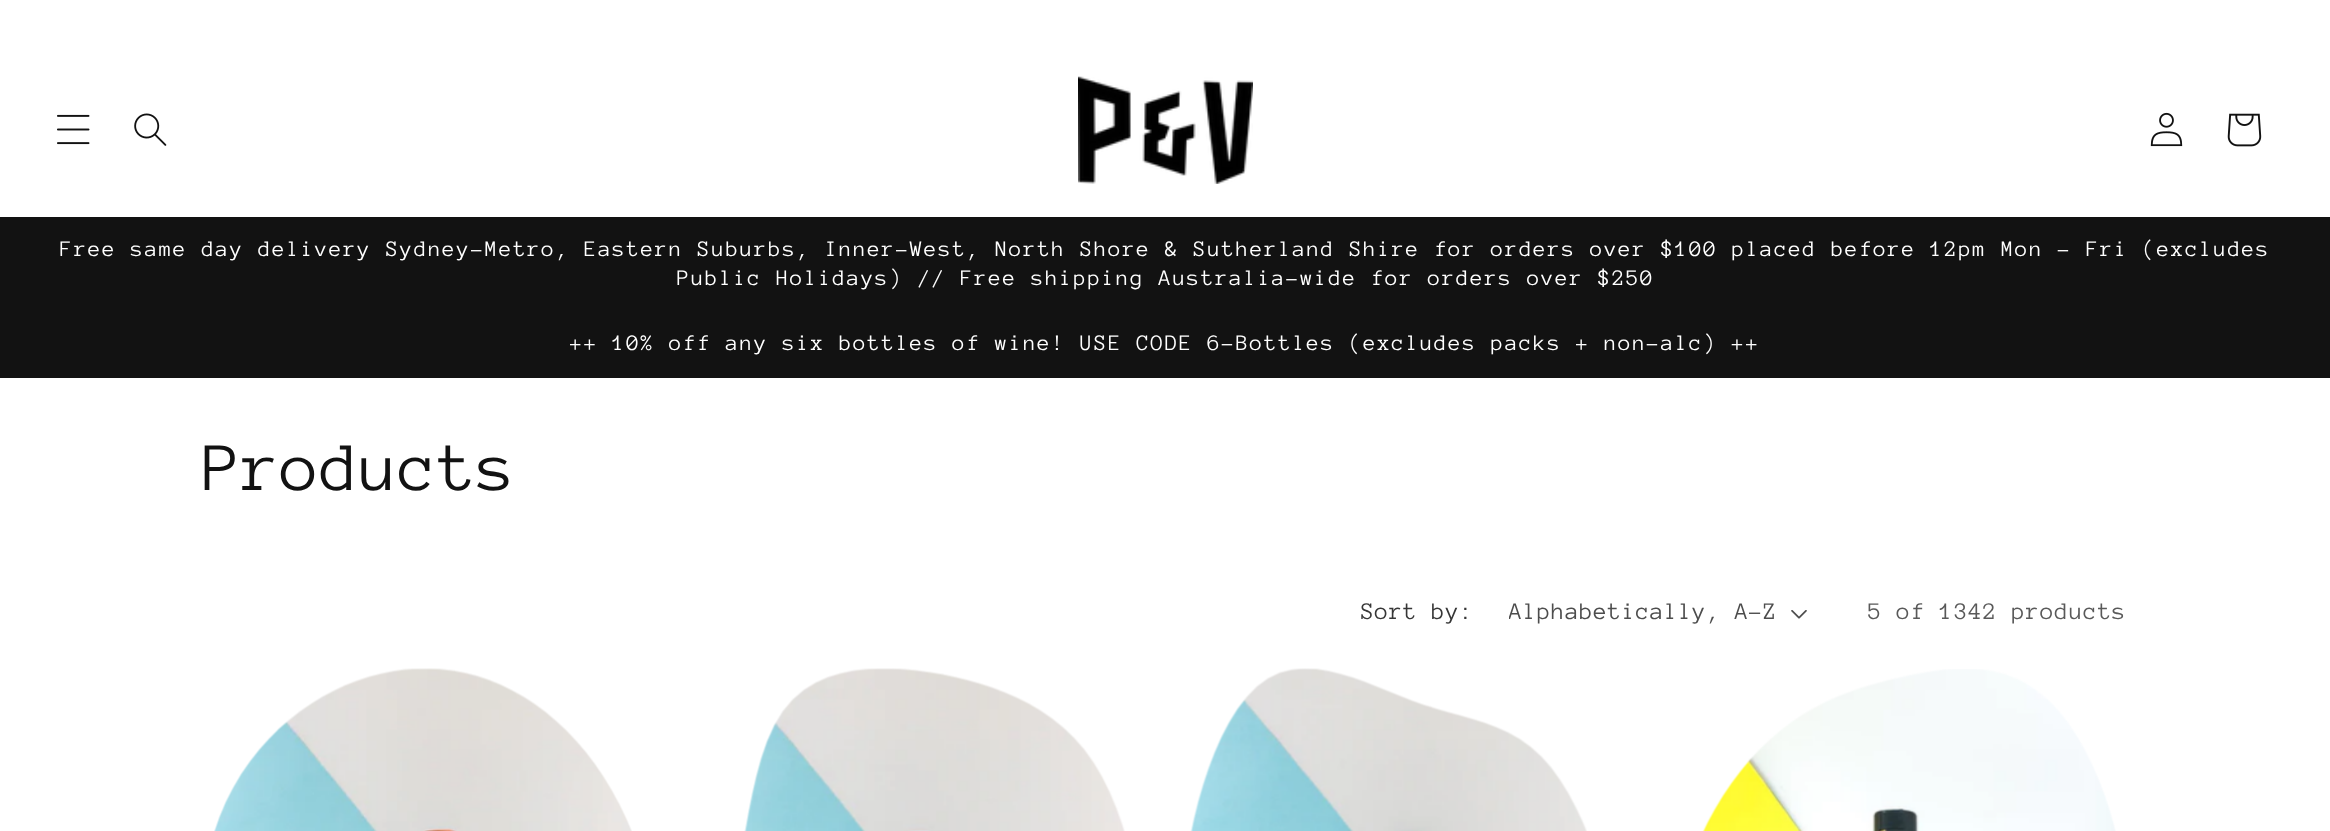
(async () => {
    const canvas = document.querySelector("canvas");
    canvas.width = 2330;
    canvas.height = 831;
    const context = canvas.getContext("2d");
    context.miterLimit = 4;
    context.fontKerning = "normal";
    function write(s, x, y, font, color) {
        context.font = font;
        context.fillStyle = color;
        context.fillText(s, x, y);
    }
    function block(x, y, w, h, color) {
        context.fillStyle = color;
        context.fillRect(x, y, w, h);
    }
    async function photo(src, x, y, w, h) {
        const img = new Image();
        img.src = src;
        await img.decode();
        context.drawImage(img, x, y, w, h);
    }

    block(0, 0, 2330, 831, "rgb(255, 255, 255)");
    await photo("media/1.png", 57, 114, 33, 31);
    await photo("media/2.png", 134, 113, 33, 33);
    await photo("media/3.png", 1078, 76, 175, 108);
    await photo("media/4.png", 2150, 112, 33, 35);
    await photo("media/5.png", 2227, 113, 35, 34);
    block(0, 217, 2330, 161, "rgb(18, 18, 18)");
    context.letterSpacing = "1.75px";
    write("Free same day delivery Sydney-Metro, Eastern Suburbs, Inner-West, North Shore & Sutherland Shire for orders over $100 placed before 12pm Mon - Fri (excludes", 60, 256, "22.75px Anonymous Pro", "rgb(255, 255, 255)");
    write("Public Holidays) // Free shipping Australia-wide for orders over $250", 677, 285, "22.75px Anonymous Pro", "rgb(255, 255, 255)");
    write("++ 10% off any six bottles of wine! USE CODE 6-Bottles (excludes packs + non-alc) ++", 570, 350, "22.75px Anonymous Pro", "rgb(255, 255, 255)");
    context.letterSpacing = "1px";
    write("Products", 203, 490, "70px Anonymous Pro", "rgb(18, 18, 18)");
    context.letterSpacing = "0.75px";
    write("Sort by:", 1361, 619, "24.5px Anonymous Pro", "rgb(54, 54, 54)");
    context.save();
    context.beginPath();
    context.rect(1509, 595, 267, 37);
    context.clip();
    write("Alphabetically, A-Z", 1509, 619, "24.5px Anonymous Pro", "rgb(77, 77, 77)");
    context.restore();
    await photo("media/6.png", 1791, 610, 16, 9);
    context.letterSpacing = "1px";
    write("5 of 1342 products", 1868, 619, "24.5px Anonymous Pro", "rgb(89, 89, 89)");
    await photo("media/7.png", 214, 668, 418, 163);
    await photo("media/8.png", 744, 668, 381, 163);
    await photo("media/9.png", 1190, 668, 397, 163);
    await photo("media/10.png", 1702, 669, 414, 162);
})();
